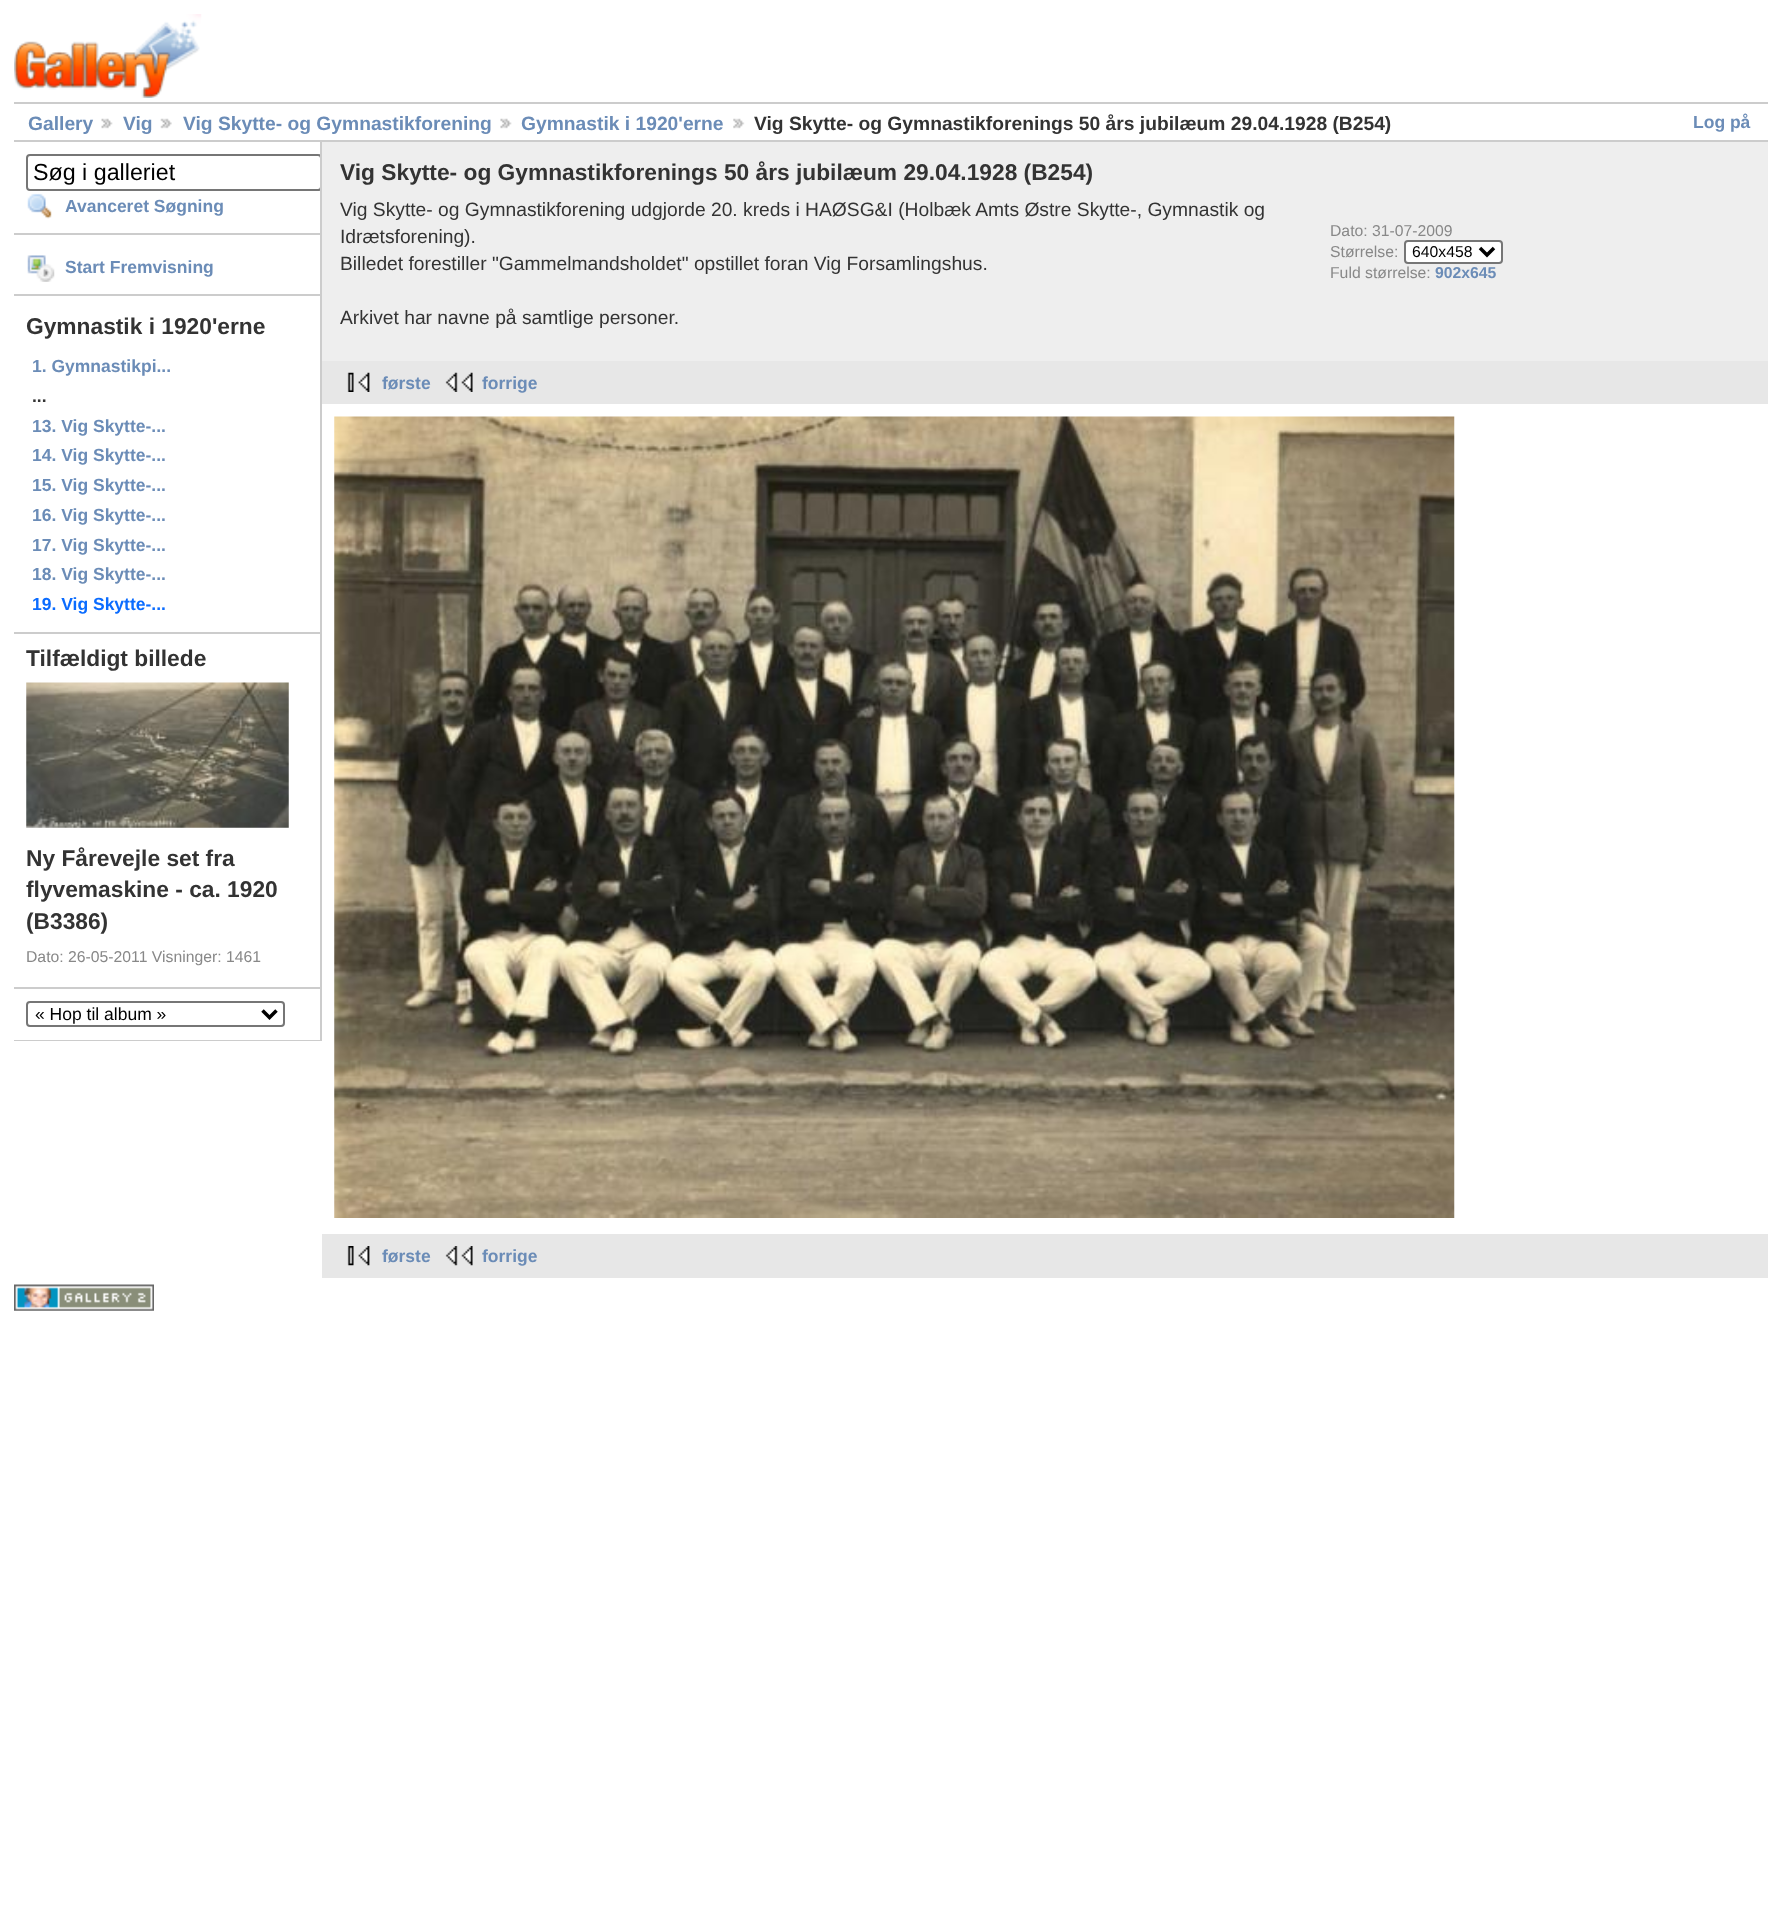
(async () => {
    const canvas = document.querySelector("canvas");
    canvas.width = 1780;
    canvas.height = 1906;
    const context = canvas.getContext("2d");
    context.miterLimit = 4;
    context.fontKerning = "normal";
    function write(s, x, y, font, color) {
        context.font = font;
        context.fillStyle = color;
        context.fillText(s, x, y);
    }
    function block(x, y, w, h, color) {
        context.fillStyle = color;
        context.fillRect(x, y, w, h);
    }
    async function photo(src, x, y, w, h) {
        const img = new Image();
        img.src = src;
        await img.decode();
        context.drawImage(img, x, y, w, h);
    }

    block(0, 0, 1780, 1906, "rgb(255, 255, 255)");
    await photo("media/1.png", 14, 14, 188, 84);
    block(14, 102, 1754, 2, "rgb(204, 204, 204)");
    block(14, 140, 1754, 2, "rgb(204, 204, 204)");
    write("Gallery", 28, 130, "bold 19.25px Liberation Sans", "rgb(107, 140, 183)");
    await photo("media/2.png", 101, 118, 12, 11);
    write("Vig", 123, 130, "bold 19.25px Liberation Sans", "rgb(107, 140, 183)");
    await photo("media/3.png", 160, 118, 12, 11);
    write("Vig Skytte- og Gymnastikforening", 183, 130, "bold 19.25px Liberation Sans", "rgb(107, 140, 183)");
    await photo("media/4.png", 500, 118, 12, 11);
    write("Gymnastik i 1920'erne", 521, 130, "bold 19.25px Liberation Sans", "rgb(107, 140, 183)");
    await photo("media/5.png", 733, 118, 12, 11);
    write("Vig Skytte- og Gymnastikforenings 50 års jubilæum 29.04.1928 (B254)", 754, 130, "bold 19.25px Liberation Sans", "rgb(51, 51, 51)");
    write("Log på", 1693, 128, "bold 17.5px Liberation Sans", "rgb(107, 140, 183)");
    block(320, 142, 2, 899, "rgb(204, 204, 204)");
    block(14, 233, 306, 2, "rgb(204, 204, 204)");
    context.save();
    context.beginPath();
    context.rect(14, 142, 306, 899);
    context.clip();
    context.beginPath();
    context.roundRect(27, 155, 294, 35, 3);
    context.strokeStyle = "rgb(118, 118, 118)";
    context.lineWidth = 2;
    context.stroke();
    context.restore();
    write("Søg i galleriet", 33, 180, "23.25px Liberation Sans", "rgb(0, 0, 0)");
    await photo("media/6.png", 27, 193, 25, 26);
    write("Avanceret Søgning", 65, 212, "bold 17.5px Liberation Sans", "rgb(107, 140, 183)");
    block(14, 294, 306, 2, "rgb(204, 204, 204)");
    await photo("media/7.png", 27, 255, 28, 27);
    write("Start Fremvisning", 65, 273, "bold 17.5px Liberation Sans", "rgb(107, 140, 183)");
    block(14, 632, 306, 2, "rgb(204, 204, 204)");
    write("Gymnastik i 1920'erne", 26, 334, "bold 22.75px Liberation Sans", "rgb(51, 51, 51)");
    write("1. Gymnastikpi...", 32, 372, "bold 17.5px Liberation Sans", "rgb(107, 140, 183)");
    write("...", 32, 402, "bold 17.5px Liberation Sans", "rgb(51, 51, 51)");
    write("13. Vig Skytte-...", 32, 432, "bold 17.5px Liberation Sans", "rgb(107, 140, 183)");
    write("14. Vig Skytte-...", 32, 461, "bold 17.5px Liberation Sans", "rgb(107, 140, 183)");
    write("15. Vig Skytte-...", 32, 491, "bold 17.5px Liberation Sans", "rgb(107, 140, 183)");
    write("16. Vig Skytte-...", 32, 521, "bold 17.5px Liberation Sans", "rgb(107, 140, 183)");
    write("17. Vig Skytte-...", 32, 551, "bold 17.5px Liberation Sans", "rgb(107, 140, 183)");
    write("18. Vig Skytte-...", 32, 580, "bold 17.5px Liberation Sans", "rgb(107, 140, 183)");
    write("19. Vig Skytte-...", 32, 610, "bold 17.5px Liberation Sans", "rgb(11, 108, 255)");
    block(14, 987, 306, 2, "rgb(204, 204, 204)");
    write("Tilfældigt billede", 26, 666, "bold 22.75px Liberation Sans", "rgb(51, 51, 51)");
    await photo("media/8.png", 26, 682, 263, 146);
    write("Ny Fårevejle set fra", 26, 866, "bold 22.75px Liberation Sans", "rgb(51, 51, 51)");
    write("flyvemaskine - ca. 1920", 26, 897, "bold 22.75px Liberation Sans", "rgb(51, 51, 51)");
    write("(B3386)", 26, 929, "bold 22.75px Liberation Sans", "rgb(51, 51, 51)");
    write("Dato: 26-05-2011 Visninger: 1461", 26, 962, "15.75px Liberation Sans", "rgb(136, 136, 136)");
    block(14, 1040, 306, 1, "rgb(204, 204, 204)");
    context.beginPath();
    context.roundRect(27, 1002, 257, 24, 3);
    context.strokeStyle = "rgb(118, 118, 118)";
    context.lineWidth = 2;
    context.stroke();
    context.beginPath();
    context.moveTo(262.5, 1010.5);
    context.lineTo(269.5, 1017.5);
    context.lineTo(276.5, 1010.5);
    context.strokeStyle = "rgb(0, 0, 0)";
    context.lineWidth = 3.5;
    context.stroke();
    write("« Hop til album »", 35, 1020, "17.5px Liberation Sans", "rgb(0, 0, 0)");
    block(322, 142, 1446, 219, "rgb(238, 238, 238)");
    write("Vig Skytte- og Gymnastikforenings 50 års jubilæum 29.04.1928 (B254)", 340, 180, "bold 22.75px Liberation Sans", "rgb(51, 51, 51)");
    write("Vig Skytte- og Gymnastikforening udgjorde 20. kreds i HAØSG&I (Holbæk Amts Østre Skytte-, Gymnastik og", 340, 216, "19.25px Liberation Sans", "rgb(51, 51, 51)");
    write("Idrætsforening).", 340, 243, "19.25px Liberation Sans", "rgb(51, 51, 51)");
    write("Billedet forestiller \"Gammelmandsholdet\" opstillet foran Vig Forsamlingshus.", 340, 270, "19.25px Liberation Sans", "rgb(51, 51, 51)");
    write("Arkivet har navne på samtlige personer.", 340, 324, "19.25px Liberation Sans", "rgb(51, 51, 51)");
    write("Dato: 31-07-2009", 1330, 236, "15.75px Liberation Sans", "rgb(136, 136, 136)");
    write("Størrelse:", 1330, 257, "15.75px Liberation Sans", "rgb(136, 136, 136)");
    context.fillStyle = "rgb(255, 255, 255)";
    context.beginPath();
    context.roundRect(1405, 241, 97, 22, 3);
    context.fill();
    context.strokeStyle = "rgb(118, 118, 118)";
    context.lineWidth = 2;
    context.stroke();
    context.beginPath();
    context.moveTo(1480, 248);
    context.lineTo(1487, 255);
    context.lineTo(1494, 248);
    context.strokeStyle = "rgb(0, 0, 0)";
    context.lineWidth = 3.5;
    context.stroke();
    write("640x458", 1412, 257, "15.75px Liberation Sans", "rgb(0, 0, 0)");
    write("Fuld størrelse:", 1330, 278, "15.75px Liberation Sans", "rgb(136, 136, 136)");
    write("902x645", 1435, 278, "bold 15.75px Liberation Sans", "rgb(107, 140, 183)");
    block(322, 361, 1446, 43, "rgb(231, 231, 231)");
    await photo("media/9.png", 347, 372, 23, 20);
    write("første", 382, 389, "bold 17.5px Liberation Sans", "rgb(107, 140, 183)");
    await photo("media/10.png", 445, 372, 28, 20);
    write("forrige", 482, 389, "bold 17.5px Liberation Sans", "rgb(107, 140, 183)");
    await photo("media/11.png", 334, 416, 1121, 802);
    block(322, 1234, 1446, 44, "rgb(231, 231, 231)");
    await photo("media/12.png", 347, 1246, 23, 20);
    write("første", 382, 1262, "bold 17.5px Liberation Sans", "rgb(107, 140, 183)");
    await photo("media/13.png", 445, 1246, 28, 20);
    write("forrige", 482, 1262, "bold 17.5px Liberation Sans", "rgb(107, 140, 183)");
    await photo("media/14.png", 14, 1284, 140, 27);
})();
